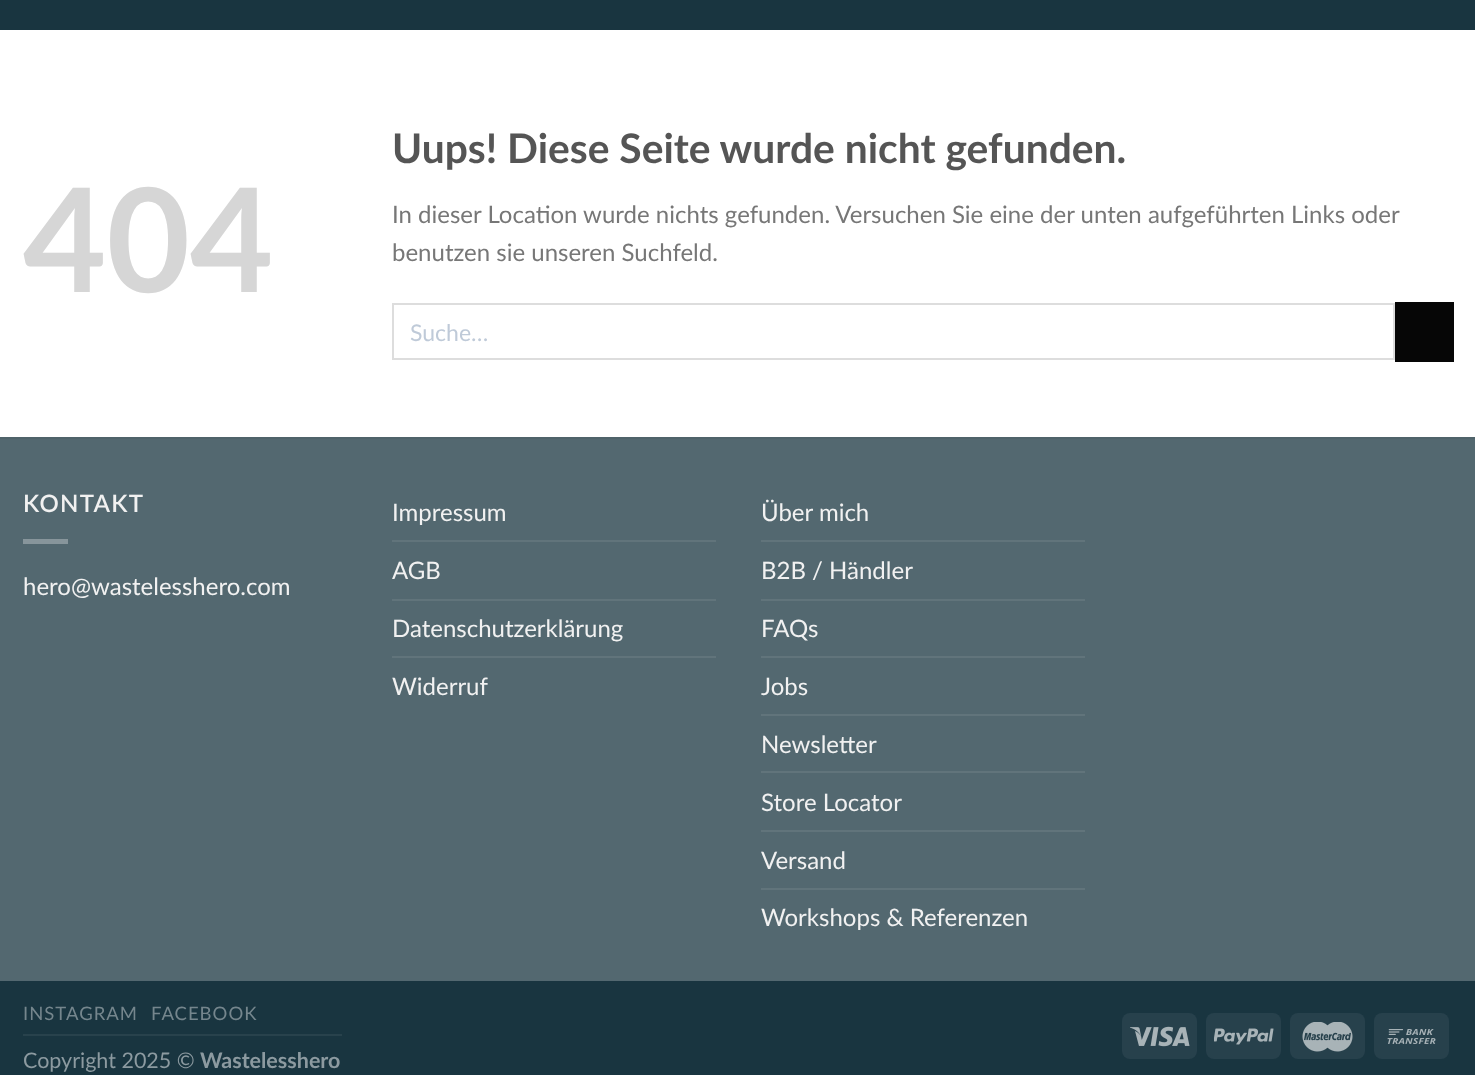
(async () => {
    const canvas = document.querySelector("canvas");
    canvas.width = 1475;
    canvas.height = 1075;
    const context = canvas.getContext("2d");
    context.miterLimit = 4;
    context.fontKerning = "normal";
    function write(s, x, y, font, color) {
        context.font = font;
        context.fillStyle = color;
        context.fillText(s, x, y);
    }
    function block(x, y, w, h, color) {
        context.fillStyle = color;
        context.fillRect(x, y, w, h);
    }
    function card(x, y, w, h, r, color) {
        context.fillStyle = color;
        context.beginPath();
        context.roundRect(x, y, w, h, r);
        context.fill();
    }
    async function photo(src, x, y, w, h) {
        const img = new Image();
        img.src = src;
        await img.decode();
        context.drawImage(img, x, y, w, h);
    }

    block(0, 0, 1475, 1075, "rgb(255, 255, 255)");
    block(0, 0, 1475, 30, "rgb(25, 53, 64)");
    write("404", 23, 292, "bold 144px Lato", "rgb(214, 214, 214)");
    write("Uups! Diese Seite wurde nicht gefunden.", 392, 163, "bold 40.75px Lato", "rgb(85, 85, 85)");
    write("In dieser Location wurde nichts gefunden. Versuchen Sie eine der unten aufgeführten Links oder", 392, 223, "24px Lato", "rgb(119, 119, 119)");
    write("benutzen sie unseren Suchfeld.", 392, 261, "24px Lato", "rgb(119, 119, 119)");
    context.strokeStyle = "rgb(221, 221, 221)";
    context.lineWidth = 2;
    context.strokeRect(393, 304, 1001, 55);
    write("Suche…", 410, 341, "23px Lato", "rgb(191, 202, 216)");
    block(1395, 302, 59, 60, "rgb(6, 6, 6)");
    block(0, 439, 1475, 542, "rgb(83, 104, 112)");
    block(0, 437, 1475, 2, "rgb(79, 99, 106)");
    context.letterSpacing = "1.25px";
    write("KONTAKT", 23, 512, "600 24px Lato", "rgb(241, 241, 241)");
    block(23, 539, 45, 5, "rgb(135, 149, 155)");
    context.letterSpacing = "0px";
    write("hero@wastelesshero.com", 23, 595, "24px Lato", "rgb(241, 241, 241)");
    write("Impressum", 392, 521, "24px Lato", "rgb(241, 241, 241)");
    block(392, 540, 324, 2, "rgb(97, 116, 123)");
    write("AGB", 392, 579, "24px Lato", "rgb(241, 241, 241)");
    block(392, 599, 324, 2, "rgb(97, 116, 123)");
    write("Datenschutzerklärung", 392, 637, "24px Lato", "rgb(241, 241, 241)");
    block(392, 656, 324, 2, "rgb(97, 116, 123)");
    write("Widerruf", 392, 695, "24px Lato", "rgb(241, 241, 241)");
    write("Über mich", 761, 521, "24px Lato", "rgb(241, 241, 241)");
    block(761, 540, 324, 2, "rgb(97, 116, 123)");
    write("B2B / Händler", 761, 579, "24px Lato", "rgb(241, 241, 241)");
    block(761, 599, 324, 2, "rgb(97, 116, 123)");
    write("FAQs", 761, 637, "24px Lato", "rgb(241, 241, 241)");
    block(761, 656, 324, 2, "rgb(97, 116, 123)");
    write("Jobs", 761, 695, "24px Lato", "rgb(241, 241, 241)");
    block(761, 714, 324, 2, "rgb(97, 116, 123)");
    write("Newsletter", 761, 753, "24px Lato", "rgb(241, 241, 241)");
    block(761, 771, 324, 2, "rgb(97, 116, 123)");
    write("Store Locator", 761, 811, "24px Lato", "rgb(241, 241, 241)");
    block(761, 830, 324, 2, "rgb(97, 116, 123)");
    write("Versand", 761, 869, "24px Lato", "rgb(241, 241, 241)");
    block(761, 888, 324, 2, "rgb(97, 116, 123)");
    write("Workshops & Referenzen", 761, 926, "24px Lato", "rgb(241, 241, 241)");
    block(0, 981, 1475, 94, "rgb(25, 53, 64)");
    block(23, 1034, 319, 2, "rgb(40, 66, 76)");
    context.letterSpacing = "1px";
    write("INSTAGRAM", 23, 1020, "18.5px Lato", "rgb(117, 134, 141)");
    write("FACEBOOK", 151, 1020, "18.5px Lato", "rgb(117, 134, 141)");
    context.letterSpacing = "0px";
    write("Copyright 2025 ©", 23, 1068, "21.5px Lato", "rgb(140, 154, 160)");
    write("Wastelesshero", 200, 1068, "bold 21.5px Lato", "rgb(140, 154, 160)");
    card(1122, 1013, 75, 46, 8, "rgb(39, 65, 76)");
    await photo("media/1.png", 1130, 1026, 60, 21);
    card(1206, 1013, 75, 46, 8, "rgb(39, 65, 76)");
    await photo("media/2.png", 1214, 1028, 60, 17);
    card(1290, 1013, 75, 46, 8, "rgb(39, 65, 76)");
    await photo("media/3.png", 1302, 1022, 51, 30);
    card(1374, 1013, 75, 46, 8, "rgb(39, 65, 76)");
    await photo("media/4.png", 1387, 1029, 49, 15);
})();
